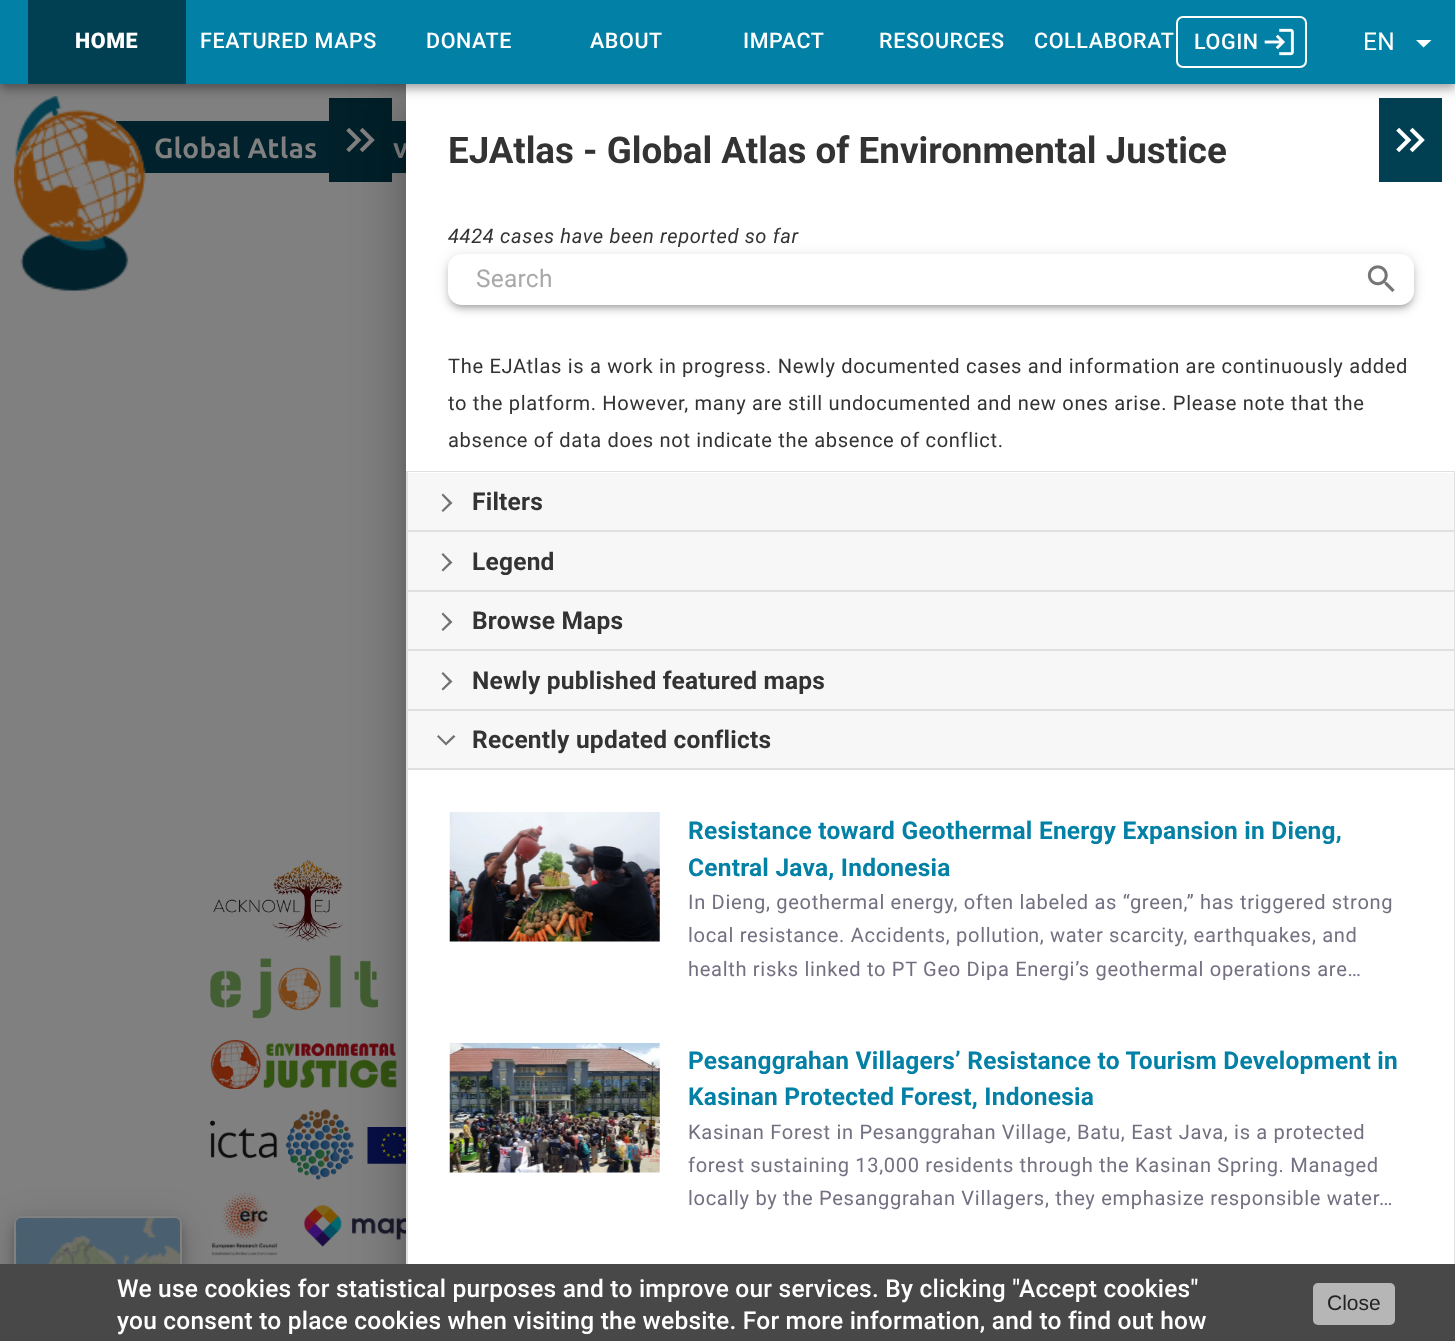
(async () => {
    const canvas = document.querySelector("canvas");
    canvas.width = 1455;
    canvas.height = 1341;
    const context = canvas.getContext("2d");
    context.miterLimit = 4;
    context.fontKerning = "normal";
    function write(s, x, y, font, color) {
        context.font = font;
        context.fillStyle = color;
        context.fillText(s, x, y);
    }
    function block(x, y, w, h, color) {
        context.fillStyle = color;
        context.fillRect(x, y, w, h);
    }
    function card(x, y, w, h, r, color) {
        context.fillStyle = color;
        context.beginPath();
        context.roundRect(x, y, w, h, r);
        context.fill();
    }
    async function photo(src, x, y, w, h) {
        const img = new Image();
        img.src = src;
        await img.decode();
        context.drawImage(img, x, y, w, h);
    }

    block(0, 0, 1455, 1341, "rgb(128, 128, 128)");
    block(116, 121, 290, 52, "rgb(1, 34, 44)");
    block(329, 98, 63, 84, "rgb(1, 32, 41)");
    await photo("media/3.png", 14, 96, 132, 195);
    context.letterSpacing = "0.23px";
    write("v", 393, 158, "bold 28px Ubuntu", "rgb(128, 128, 128)");
    await photo("media/2.png", 346, 127, 29, 26);
    await photo("media/5.png", 213, 859, 131, 84);
    await photo("media/6.png", 210, 955, 168, 64);
    await photo("media/7.png", 210, 1040, 187, 49);
    await photo("media/8.png", 210, 1109, 144, 71);
    await photo("media/9.png", 367, 1127, 39, 37);
    await photo("media/11.png", 303, 1205, 103, 42);
    context.fillStyle = "rgba(0, 0, 0, 0.12)";
    context.filter = "blur(26px)";
    context.beginPath();
    context.rect(397, 86, 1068, 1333);
    context.fill();
    context.filter = "none";
    context.fillStyle = "rgba(0, 0, 0, 0.14)";
    context.filter = "blur(21px)";
    context.beginPath();
    context.rect(403, 109, 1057, 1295);
    context.fill();
    context.filter = "none";
    context.fillStyle = "rgba(0, 0, 0, 0.2)";
    context.filter = "blur(9px)";
    context.beginPath();
    context.rect(415, 107, 1032, 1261);
    context.fill();
    context.filter = "none";
    block(406, 84, 1049, 1180, "rgb(255, 255, 255)");
    block(1379, 98, 63, 84, "rgb(1, 64, 82)");
    context.fillStyle = "rgba(0, 0, 0, 0.12)";
    context.filter = "blur(9px)";
    context.beginPath();
    context.rect(0, 2, 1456, 84);
    context.fill();
    context.filter = "none";
    context.fillStyle = "rgba(0, 0, 0, 0.14)";
    context.filter = "blur(4.5px)";
    context.beginPath();
    context.rect(0, 7, 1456, 84);
    context.fill();
    context.filter = "none";
    context.fillStyle = "rgba(0, 0, 0, 0.2)";
    context.filter = "blur(3.5px)";
    context.beginPath();
    context.rect(2, 5, 1452, 81);
    context.fill();
    context.filter = "none";
    block(0, 0, 1455, 84, "rgb(3, 128, 165)");
    block(28, 0, 158, 84, "rgb(1, 64, 82)");
    context.letterSpacing = "0.6px";
    write("HOME", 75, 48, "900 21.5px Roboto", "rgb(255, 255, 255)");
    write("FEATURED MAPS", 200, 48, "500 21.5px Roboto", "rgb(255, 255, 255)");
    write("DONATE", 426, 48, "500 21.5px Roboto", "rgb(255, 255, 255)");
    write("ABOUT", 590, 48, "500 21.5px Roboto", "rgb(255, 255, 255)");
    write("IMPACT", 743, 48, "500 21.5px Roboto", "rgb(255, 255, 255)");
    write("RESOURCES", 879, 48, "500 21.5px Roboto", "rgb(255, 255, 255)");
    write("COLLABORAT", 1034, 48, "500 21.5px Roboto", "rgb(255, 255, 255)");
    context.beginPath();
    context.roundRect(1177, 17, 129, 50, 6);
    context.strokeStyle = "rgb(255, 255, 255)";
    context.lineWidth = 2;
    context.stroke();
    write("LOGIN", 1194, 49, "500 21.5px Roboto", "rgb(255, 255, 255)");
    await photo("media/1.png", 1264, 28, 30, 28);
    context.letterSpacing = "0.23px";
    write("EN", 1363, 50, "24.5px Roboto", "rgb(255, 255, 255)");
    context.beginPath();
    context.moveTo(1416, 40);
    context.lineTo(1423.5, 47.5);
    context.lineTo(1431.5, 40);
    context.closePath();
    context.fill();
    write("Global Atlas", 154, 158, "bold 28px Ubuntu", "rgb(128, 128, 128)");
    await photo("media/10.png", 212, 1193, 66, 63);
    context.fillStyle = "rgba(0, 0, 0, 0.12)";
    context.filter = "blur(16px)";
    context.beginPath();
    context.roundRect(14, 1218, 168, 112, 7);
    context.fill();
    context.filter = "none";
    context.fillStyle = "rgba(0, 0, 0, 0.14)";
    context.filter = "blur(9px)";
    context.beginPath();
    context.roundRect(14, 1227, 168, 112, 7);
    context.fill();
    context.filter = "none";
    context.fillStyle = "rgba(0, 0, 0, 0.2)";
    context.filter = "blur(4.5px)";
    context.beginPath();
    context.roundRect(16, 1223, 164, 109, 5);
    context.fill();
    context.filter = "none";
    await photo("media/4.png", 14, 1216, 168, 48);
    context.beginPath();
    context.roundRect(15, 1217, 166, 110, 6);
    context.strokeStyle = "rgb(128, 128, 128)";
    context.stroke();
    context.strokeStyle = "rgb(224, 224, 224)";
    context.strokeRect(407, 710, 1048, 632);
    block(0, 1264, 1455, 77, "rgb(72, 72, 72)");
    write("We use cookies for statistical purposes and to improve our services. By clicking \"Accept cookies\"", 117, 1297, "500 24.5px Roboto", "rgb(255, 255, 255)");
    write("you consent to place cookies when visiting the website. For more information, and to find out how", 117, 1329, "500 24.5px Roboto", "rgb(255, 255, 255)");
    card(1313, 1283, 82, 42, 5, "rgb(182, 182, 182)");
    context.letterSpacing = "0px";
    write("Close", 1327, 1310, "21px Liberation Sans", "rgb(36, 36, 36)");
    write("EJAtlas - Global Atlas of Environmental Justice", 448, 163, "bold 36.75px Roboto", "rgb(51, 51, 51)");
    context.letterSpacing = "0.67px";
    write("4424 cases have been reported so far", 448, 243, "italic 20.1px Roboto", "rgb(51, 51, 51)");
    context.fillStyle = "rgba(0, 0, 0, 0.12)";
    context.filter = "blur(7px)";
    context.beginPath();
    context.roundRect(448, 256, 966, 50, 14);
    context.fill();
    context.filter = "none";
    context.fillStyle = "rgba(0, 0, 0, 0.14)";
    context.filter = "blur(3.5px)";
    context.beginPath();
    context.roundRect(448, 259, 966, 51, 14);
    context.fill();
    context.filter = "none";
    context.fillStyle = "rgba(0, 0, 0, 0.2)";
    context.filter = "blur(2.5px)";
    context.beginPath();
    context.roundRect(452, 263, 959, 43, 11);
    context.fill();
    context.filter = "none";
    card(448, 254, 966, 51, 14, "rgb(255, 255, 255)");
    context.letterSpacing = "0.23px";
    write("Search", 476, 287, "24.5px Roboto", "rgb(169, 169, 169)");
    await photo("media/12.png", 1367, 265, 28, 27);
    context.letterSpacing = "0.67px";
    write("The EJAtlas is a work in progress. Newly documented cases and information are continuously added", 448, 373, "20.1px Roboto", "rgb(51, 51, 51)");
    write("to the platform. However, many are still undocumented and new ones arise. Please note that the", 448, 410, "20.1px Roboto", "rgb(51, 51, 51)");
    write("absence of data does not indicate the absence of conflict.", 448, 447, "20.1px Roboto", "rgb(51, 51, 51)");
    context.fillStyle = "rgb(224, 224, 224)";
    context.beginPath();
    context.moveTo(406, 471);
    context.lineTo(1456, 471);
    context.lineTo(1454, 472);
    context.lineTo(408, 472);
    context.closePath();
    context.fill();
    context.beginPath();
    context.moveTo(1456, 471);
    context.lineTo(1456, 530);
    context.lineTo(1454, 530);
    context.lineTo(1454, 472);
    context.closePath();
    context.fill();
    context.fillStyle = "rgba(0, 0, 0, 0.12)";
    context.beginPath();
    context.moveTo(406, 530);
    context.lineTo(406, 471);
    context.lineTo(408, 472);
    context.lineTo(408, 530);
    context.closePath();
    context.fill();
    block(408, 473, 1046, 57, "rgb(247, 247, 247)");
    context.fillStyle = "rgb(114, 114, 114)";
    context.beginPath();
    context.moveTo(441.5, 510.5);
    context.lineTo(443, 512);
    context.lineTo(452.5, 503);
    context.lineTo(443, 493.5);
    context.lineTo(441.5, 495);
    context.lineTo(449, 503);
    context.closePath();
    context.fill();
    context.letterSpacing = "0.23px";
    write("Filters", 472, 510, "bold 24.5px Roboto", "rgb(51, 51, 51)");
    context.fillStyle = "rgb(224, 224, 224)";
    context.beginPath();
    context.moveTo(406, 530);
    context.lineTo(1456, 530);
    context.lineTo(1454, 532);
    context.lineTo(408, 532);
    context.closePath();
    context.fill();
    context.fillStyle = "rgba(0, 0, 0, 0.12)";
    context.beginPath();
    context.moveTo(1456, 530);
    context.lineTo(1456, 590);
    context.lineTo(1454, 590);
    context.lineTo(1454, 532);
    context.closePath();
    context.fill();
    context.beginPath();
    context.moveTo(406, 590);
    context.lineTo(406, 530);
    context.lineTo(408, 532);
    context.lineTo(408, 590);
    context.closePath();
    context.fill();
    block(408, 532, 1046, 58, "rgb(247, 247, 247)");
    context.fillStyle = "rgb(114, 114, 114)";
    context.beginPath();
    context.moveTo(441.5, 570);
    context.lineTo(443, 571.5);
    context.lineTo(452.5, 562.5);
    context.lineTo(443, 553);
    context.lineTo(441.5, 554.5);
    context.lineTo(449, 562.5);
    context.closePath();
    context.fill();
    write("Legend", 472, 570, "bold 24.5px Roboto", "rgb(51, 51, 51)");
    context.fillStyle = "rgb(224, 224, 224)";
    context.beginPath();
    context.moveTo(406, 590);
    context.lineTo(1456, 590);
    context.lineTo(1454, 592);
    context.lineTo(408, 592);
    context.closePath();
    context.fill();
    context.fillStyle = "rgba(0, 0, 0, 0.12)";
    context.beginPath();
    context.moveTo(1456, 590);
    context.lineTo(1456, 649);
    context.lineTo(1454, 649);
    context.lineTo(1454, 592);
    context.closePath();
    context.fill();
    context.beginPath();
    context.moveTo(406, 649);
    context.lineTo(406, 590);
    context.lineTo(408, 592);
    context.lineTo(408, 649);
    context.closePath();
    context.fill();
    block(408, 592, 1046, 57, "rgb(247, 247, 247)");
    context.fillStyle = "rgb(114, 114, 114)";
    context.beginPath();
    context.moveTo(441.5, 629.5);
    context.lineTo(443, 631);
    context.lineTo(452.5, 622);
    context.lineTo(443, 612.5);
    context.lineTo(441.5, 614);
    context.lineTo(449, 622);
    context.closePath();
    context.fill();
    write("Browse Maps", 472, 629, "bold 24.5px Roboto", "rgb(51, 51, 51)");
    context.fillStyle = "rgb(224, 224, 224)";
    context.beginPath();
    context.moveTo(406, 649);
    context.lineTo(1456, 649);
    context.lineTo(1454, 651);
    context.lineTo(408, 651);
    context.closePath();
    context.fill();
    context.fillStyle = "rgba(0, 0, 0, 0.12)";
    context.beginPath();
    context.moveTo(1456, 649);
    context.lineTo(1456, 709);
    context.lineTo(1454, 709);
    context.lineTo(1454, 651);
    context.closePath();
    context.fill();
    context.beginPath();
    context.moveTo(406, 709);
    context.lineTo(406, 649);
    context.lineTo(408, 651);
    context.lineTo(408, 709);
    context.closePath();
    context.fill();
    block(408, 651, 1046, 58, "rgb(247, 247, 247)");
    context.fillStyle = "rgb(114, 114, 114)";
    context.beginPath();
    context.moveTo(441.5, 689);
    context.lineTo(443, 690.5);
    context.lineTo(452.5, 681.5);
    context.lineTo(443, 672);
    context.lineTo(441.5, 673.5);
    context.lineTo(449, 681.5);
    context.closePath();
    context.fill();
    write("Newly published featured maps", 472, 689, "bold 24.5px Roboto", "rgb(51, 51, 51)");
    block(408, 711, 1046, 57, "rgb(247, 247, 247)");
    context.fillStyle = "rgb(114, 114, 114)";
    context.beginPath();
    context.moveTo(438.5, 735);
    context.lineTo(437, 736.5);
    context.lineTo(446, 745.5);
    context.lineTo(455.5, 736.5);
    context.lineTo(453.5, 735);
    context.lineTo(446, 742.5);
    context.closePath();
    context.fill();
    write("Recently updated conflicts", 472, 748, "bold 24.5px Roboto", "rgb(51, 51, 51)");
    block(408, 768, 1046, 2, "rgb(223, 223, 223)");
    await photo("media/13.png", 449, 812, 211, 130);
    write("Resistance toward Geothermal Energy Expansion in Dieng,", 688, 839, "bold 24.5px Roboto", "rgb(3, 128, 165)");
    write("Central Java, Indonesia", 688, 876, "bold 24.5px Roboto", "rgb(3, 128, 165)");
    context.letterSpacing = "0.67px";
    write("In Dieng, geothermal energy, often labeled as “green,” has triggered strong", 688, 909, "20.1px Roboto", "rgb(116, 111, 129)");
    write("local resistance. Accidents, pollution, water scarcity, earthquakes, and", 688, 942, "20.1px Roboto", "rgb(116, 111, 129)");
    write("health risks linked to PT Geo Dipa Energi’s geothermal operations are…", 688, 976, "20.1px Roboto", "rgb(116, 111, 129)");
    await photo("media/14.png", 449, 1043, 211, 130);
    context.letterSpacing = "0.23px";
    write("Pesanggrahan Villagers’ Resistance to Tourism Development in", 688, 1069, "bold 24.5px Roboto", "rgb(3, 128, 165)");
    write("Kasinan Protected Forest, Indonesia", 688, 1105, "bold 24.5px Roboto", "rgb(3, 128, 165)");
    context.letterSpacing = "0.67px";
    write("Kasinan Forest in Pesanggrahan Village, Batu, East Java, is a protected", 688, 1139, "20.1px Roboto", "rgb(116, 111, 129)");
    write("forest sustaining 13,000 residents through the Kasinan Spring. Managed", 688, 1172, "20.1px Roboto", "rgb(116, 111, 129)");
    write("locally by the Pesanggrahan Villagers, they emphasize responsible water…", 688, 1205, "20.1px Roboto", "rgb(116, 111, 129)");
    await photo("media/15.png", 1396, 127, 29, 26);
})();
